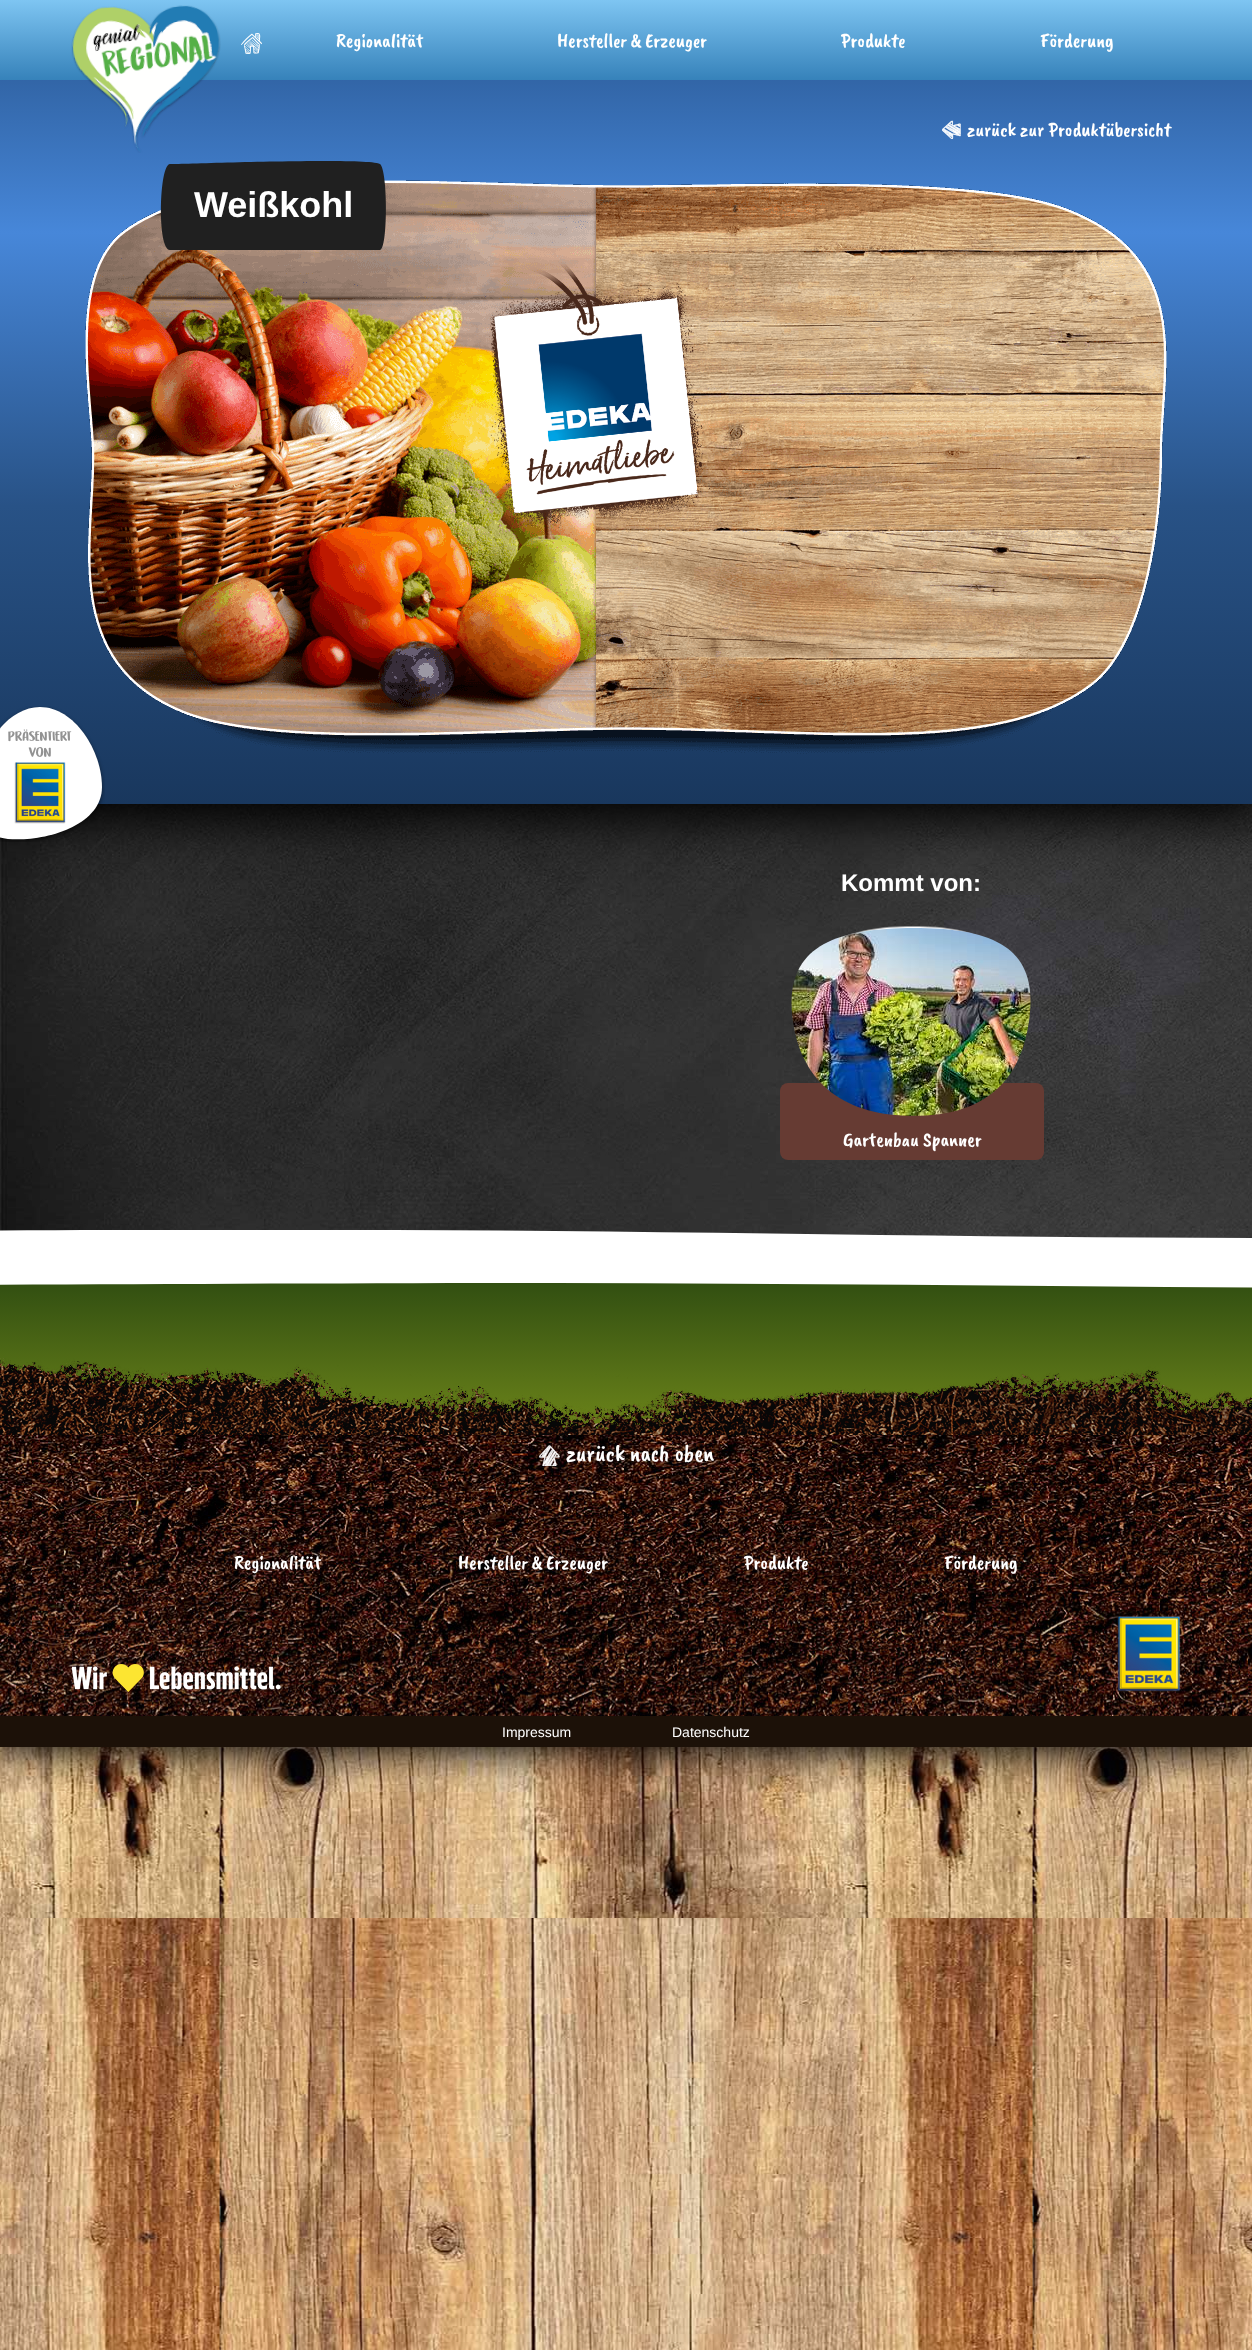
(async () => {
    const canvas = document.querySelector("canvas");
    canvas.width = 1252;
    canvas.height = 2350;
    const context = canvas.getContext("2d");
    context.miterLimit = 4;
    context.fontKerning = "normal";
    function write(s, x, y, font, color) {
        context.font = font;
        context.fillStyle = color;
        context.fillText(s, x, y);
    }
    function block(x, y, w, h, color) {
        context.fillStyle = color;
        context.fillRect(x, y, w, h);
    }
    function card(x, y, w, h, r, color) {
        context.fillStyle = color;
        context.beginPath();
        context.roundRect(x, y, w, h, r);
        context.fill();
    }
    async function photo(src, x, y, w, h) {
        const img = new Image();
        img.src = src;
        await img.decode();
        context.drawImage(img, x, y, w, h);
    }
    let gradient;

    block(0, 0, 1252, 2350, "rgb(255, 255, 255)");
    await photo("media/1.png", 0, 1747, 1252, 603);
    context.fillStyle = "rgb(0, 0, 0)";
    context.filter = "blur(20px)";
    context.beginPath();
    context.rect(-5, -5, 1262, 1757);
    context.fill();
    context.filter = "none";
    await photo("media/10.png", 0, 804, 1252, 434);
    context.filter = "blur(25px)";
    context.beginPath();
    context.rect(-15, -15, 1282, 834);
    context.fill();
    context.filter = "none";
    gradient = context.createLinearGradient(626, 80, 626, 0);
    gradient.addColorStop(0, "rgb(54, 130, 186)");
    gradient.addColorStop(1, "rgb(126, 197, 242)");
    context.fillStyle = gradient;
    context.fillRect(0, 0, 1252, 80);
    gradient = context.createLinearGradient(626, 0, 626, 804);
    gradient.addColorStop(0, "rgb(39, 84, 141)");
    gradient.addColorStop(0.29, "rgb(71, 135, 217)");
    gradient.addColorStop(0.63, "rgb(40, 82, 134)");
    gradient.addColorStop(1, "rgb(25, 55, 93)");
    context.fillStyle = gradient;
    context.fillRect(0, 80, 1252, 724);
    await photo("media/2.png", 71, 5, 150, 148);
    await photo("media/3.png", 241, 33, 21, 21);
    write("Regionalität", 336, 47, "20px Caveat Brush", "rgb(255, 255, 255)");
    write("Hersteller & Erzeuger", 557, 47, "20px Caveat Brush", "rgb(255, 255, 255)");
    write("Produkte", 841, 47, "20px Caveat Brush", "rgb(255, 255, 255)");
    write("Förderung", 1040, 47, "20px Caveat Brush", "rgb(255, 255, 255)");
    await photo("media/8.png", 85, 180, 1082, 574);
    await photo("media/4.png", 0, 706, 105, 136);
    await photo("media/5.png", 8, 729, 64, 28);
    await photo("media/6.png", 14, 762, 52, 62);
    await photo("media/7.png", 942, 120, 19, 20);
    write("zurück zur Produktübersicht", 967, 136, "20px Caveat Brush", "rgb(255, 255, 255)");
    context.fillStyle = "rgb(32, 32, 32)";
    context.beginPath();
    context.moveTo(170, 164);
    context.bezierCurveTo(181, 164, 372, 157, 380, 164);
    context.bezierCurveTo(388, 170, 388, 250, 380, 250);
    context.lineTo(170, 250);
    context.bezierCurveTo(157, 250, 159, 164, 170, 164);
    context.closePath();
    context.fill("evenodd");
    write("Weißkohl", 194, 217, "bold 36px Liberation Sans", "rgb(255, 255, 255)");
    await photo("media/9.png", 488, 262, 222, 267);
    write("Kommt von:", 841, 891, "bold 24px Liberation Sans", "rgb(255, 255, 255)");
    await photo("media/11.png", 846, 926, 131, 10);
    card(780, 1083, 264, 77, 8, "rgb(102, 59, 51)");
    await photo("media/12.png", 791, 928, 240, 188);
    write("Gartenbau Spanner", 843, 1146, "20px Caveat Brush", "rgb(255, 255, 255)");
    gradient = context.createLinearGradient(626, 1255, 626, 1435);
    gradient.addColorStop(0, "rgb(39, 69, 16)");
    gradient.addColorStop(1, "rgb(110, 134, 26)");
    context.fillStyle = gradient;
    context.fillRect(0, 1283, 1252, 151);
    context.save();
    context.beginPath();
    context.rect(0, 1230, 1252, 60);
    context.clip();
    context.fillStyle = "rgb(255, 255, 255)";
    context.beginPath();
    context.moveTo(-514, 1236);
    context.bezierCurveTo(-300, 1232, 31, 1229, 394, 1230);
    context.bezierCurveTo(682, 1231, 992, 1238, 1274, 1238);
    context.bezierCurveTo(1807, 1239, 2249, 1231, 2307, 1236);
    context.bezierCurveTo(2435, 1245, 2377, 1280, 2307, 1283);
    context.bezierCurveTo(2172, 1286, 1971, 1290, 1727, 1290);
    context.bezierCurveTo(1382, 1290, 958, 1284, 557, 1283);
    context.bezierCurveTo(141, 1283, -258, 1288, -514, 1283);
    context.bezierCurveTo(-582, 1280, -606, 1243, -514, 1236);
    context.closePath();
    context.fill("evenodd");
    context.restore();
    await photo("media/13.png", 0, 1435, 1252, 281);
    await photo("media/14.png", 0, 1358, 1252, 77);
    await photo("media/15.png", 539, 1445, 21, 21);
    write("zurück nach oben", 566, 1461, "24px Caveat Brush", "rgb(255, 255, 255)");
    write("Regionalität", 234, 1569, "20px Caveat Brush", "rgb(255, 255, 255)");
    write("Hersteller & Erzeuger", 458, 1569, "20px Caveat Brush", "rgb(255, 255, 255)");
    write("Produkte", 744, 1569, "20px Caveat Brush", "rgb(255, 255, 255)");
    write("Förderung", 944, 1569, "20px Caveat Brush", "rgb(255, 255, 255)");
    await photo("media/16.png", 72, 1664, 209, 28);
    await photo("media/17.png", 1116, 1616, 65, 77);
    block(0, 1716, 1252, 31, "rgb(28, 17, 8)");
    write("Impressum", 502, 1737, "14px Liberation Sans", "rgb(255, 255, 255)");
    write("Datenschutz", 672, 1737, "14px Liberation Sans", "rgb(255, 255, 255)");
})();
